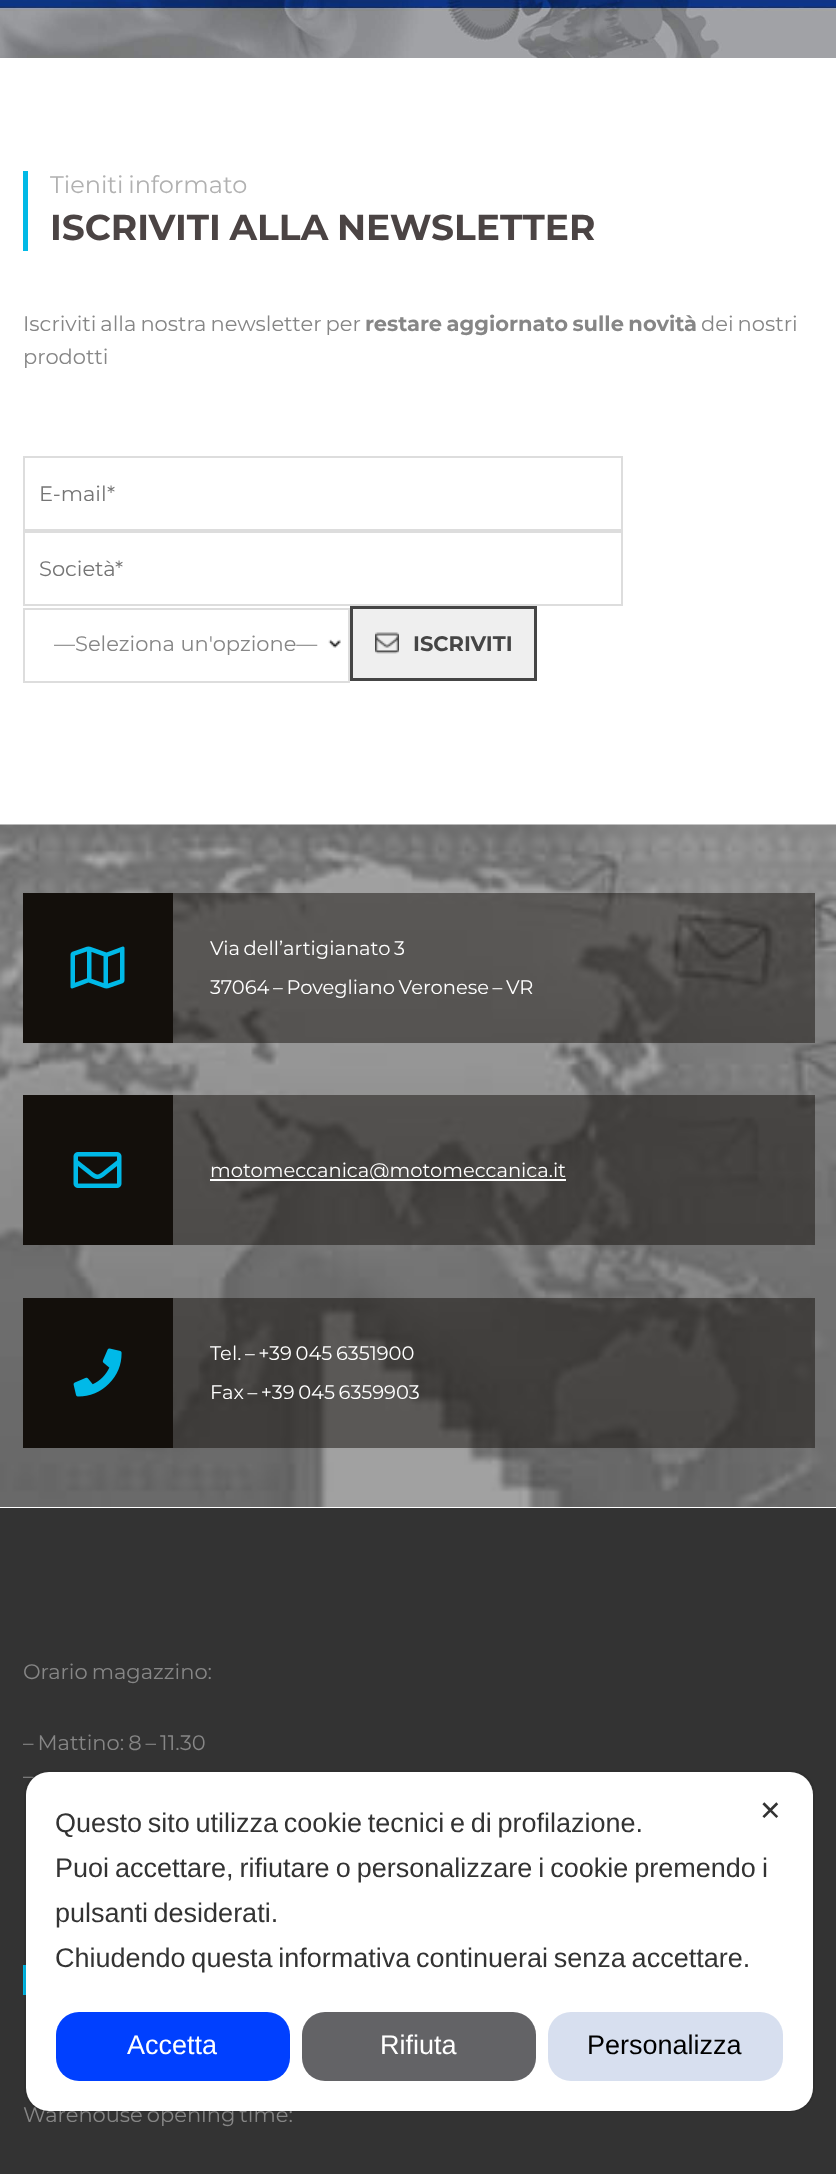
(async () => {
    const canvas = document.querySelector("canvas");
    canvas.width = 836;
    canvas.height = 2174;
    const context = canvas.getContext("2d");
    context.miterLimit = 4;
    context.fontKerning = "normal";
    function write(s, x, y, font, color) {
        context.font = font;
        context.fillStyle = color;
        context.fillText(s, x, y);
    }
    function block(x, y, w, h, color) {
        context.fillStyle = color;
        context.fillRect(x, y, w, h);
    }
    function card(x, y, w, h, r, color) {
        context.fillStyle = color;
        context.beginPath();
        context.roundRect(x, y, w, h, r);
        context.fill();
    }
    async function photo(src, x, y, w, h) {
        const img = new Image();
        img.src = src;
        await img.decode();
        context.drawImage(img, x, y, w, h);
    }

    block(0, 0, 836, 2174, "rgb(255, 255, 255)");
    await photo("media/1.png", 0, 0, 836, 58);
    block(23, 171, 5, 80, "rgb(1, 185, 230)");
    context.wordSpacing = "-1.5px";
    write("Tieniti informato", 50, 193, "24px Montserrat", "rgb(177, 177, 177)");
    write("ISCRIVITI ALLA NEWSLETTER", 50, 240, "bold 36px Montserrat", "rgb(75, 68, 68)");
    write("Iscriviti alla nostra newsletter per", 23, 331, "21px Montserrat", "rgb(134, 134, 134)");
    write("restare aggiornato sulle novità", 365, 331, "bold 21px Montserrat", "rgb(134, 134, 134)");
    write("dei nostri", 701, 331, "21px Montserrat", "rgb(134, 134, 134)");
    context.wordSpacing = "0px";
    write("prodotti", 23, 364, "21px Montserrat", "rgb(134, 134, 134)");
    context.strokeStyle = "rgb(221, 221, 221)";
    context.lineWidth = 2;
    context.strokeRect(24, 457, 598, 73);
    write("E-mail*", 39, 501, "21px Montserrat", "rgb(117, 117, 117)");
    context.strokeRect(24, 532, 598, 73);
    write("Società*", 39, 576, "21px Montserrat", "rgb(117, 117, 117)");
    await photo("media/2.png", 328, 639, 13, 9);
    context.strokeRect(24, 609, 325, 73);
    write("—Seleziona un'opzione—", 54, 651, "21px Montserrat", "rgb(134, 134, 134)");
    block(353, 609, 181, 69, "rgb(239, 239, 239)");
    await photo("media/3.png", 375, 632, 24, 22);
    context.strokeStyle = "rgb(69, 69, 69)";
    context.lineWidth = 3;
    context.strokeRect(351.5, 607.5, 184, 72);
    write("ISCRIVITI", 413, 651, "bold 21px Montserrat", "rgb(69, 69, 69)");
    await photo("media/4.png", 0, 824, 836, 683);
    block(173, 893, 642, 150, "rgba(19, 15, 11, 0.5)");
    block(23, 893, 150, 150, "rgb(19, 15, 11)");
    await photo("media/5.png", 70, 946, 55, 43);
    context.wordSpacing = "-1.5px";
    write("Via dell’artigianato 3", 210, 955, "19.5px Montserrat", "rgb(255, 255, 255)");
    write("37064 – Povegliano Veronese – VR", 210, 994, "19.5px Montserrat", "rgb(255, 255, 255)");
    block(173, 1095, 642, 150, "rgba(19, 15, 11, 0.5)");
    block(23, 1095, 150, 150, "rgb(19, 15, 11)");
    await photo("media/6.png", 73, 1152, 49, 36);
    block(210, 1179, 356, 2, "rgb(255, 255, 255)");
    context.wordSpacing = "0px";
    write("motomeccanica@motomeccanica.it", 210, 1177, "19.5px Montserrat", "rgb(255, 255, 255)");
    block(173, 1298, 642, 150, "rgba(19, 15, 11, 0.5)");
    block(23, 1298, 150, 150, "rgb(19, 15, 11)");
    await photo("media/7.png", 73, 1348, 49, 49);
    context.wordSpacing = "-1.5px";
    write("Tel. – +39 045 6351900", 210, 1360, "19.5px Montserrat", "rgb(255, 255, 255)");
    write("Fax – +39 045 6359903", 210, 1399, "19.5px Montserrat", "rgb(255, 255, 255)");
    block(0, 1508, 836, 666, "rgb(51, 51, 51)");
    write("Orario magazzino:", 23, 1679, "21px Montserrat", "rgb(134, 134, 134)");
    write("– Mattino: 8 – 11.30", 23, 1750, "21px Montserrat", "rgb(134, 134, 134)");
    write("–", 23, 1783, "21px Montserrat", "rgb(134, 134, 134)");
    block(23, 1965, 3, 30, "rgb(1, 185, 230)");
    write("Warehouse opening time:", 23, 2122, "21px Montserrat", "rgb(134, 134, 134)");
    context.beginPath();
    context.roundRect(25, 1771, 789, 340, 23);
    context.strokeStyle = "rgba(0, 0, 0, 0.08)";
    context.lineWidth = 2;
    context.stroke();
    card(26, 1772, 787, 339, 23, "rgb(255, 255, 255)");
    context.wordSpacing = "0px";
    write("✕", 759, 1820, "27px DejaVu Sans", "rgb(51, 51, 51)");
    context.wordSpacing = "-1.75px";
    write("Questo sito utilizza cookie tecnici e di profilazione.", 55, 1832, "27px Liberation Sans", "rgb(51, 51, 51)");
    context.wordSpacing = "-1.5px";
    write("Puoi accettare, rifiutare o personalizzare i cookie premendo i", 55, 1877, "27px Liberation Sans", "rgb(51, 51, 51)");
    context.wordSpacing = "-2px";
    write("pulsanti desiderati.", 55, 1922, "27px Liberation Sans", "rgb(51, 51, 51)");
    context.wordSpacing = "-1.75px";
    write("Chiudendo questa informativa continuerai senza accettare.", 55, 1967, "27px Liberation Sans", "rgb(51, 51, 51)");
    card(56, 2012, 234, 69, 23, "rgb(0, 64, 255)");
    context.wordSpacing = "0px";
    write("Accetta", 127, 2054, "27px Liberation Sans", "rgb(255, 255, 255)");
    card(302, 2012, 234, 69, 23, "rgb(99, 99, 102)");
    write("Rifiuta", 380, 2054, "27px Liberation Sans", "rgb(255, 255, 255)");
    card(548, 2012, 235, 69, 23, "rgb(215, 223, 239)");
    write("Personalizza", 587, 2054, "27px Liberation Sans", "rgb(0, 0, 0)");
})();
